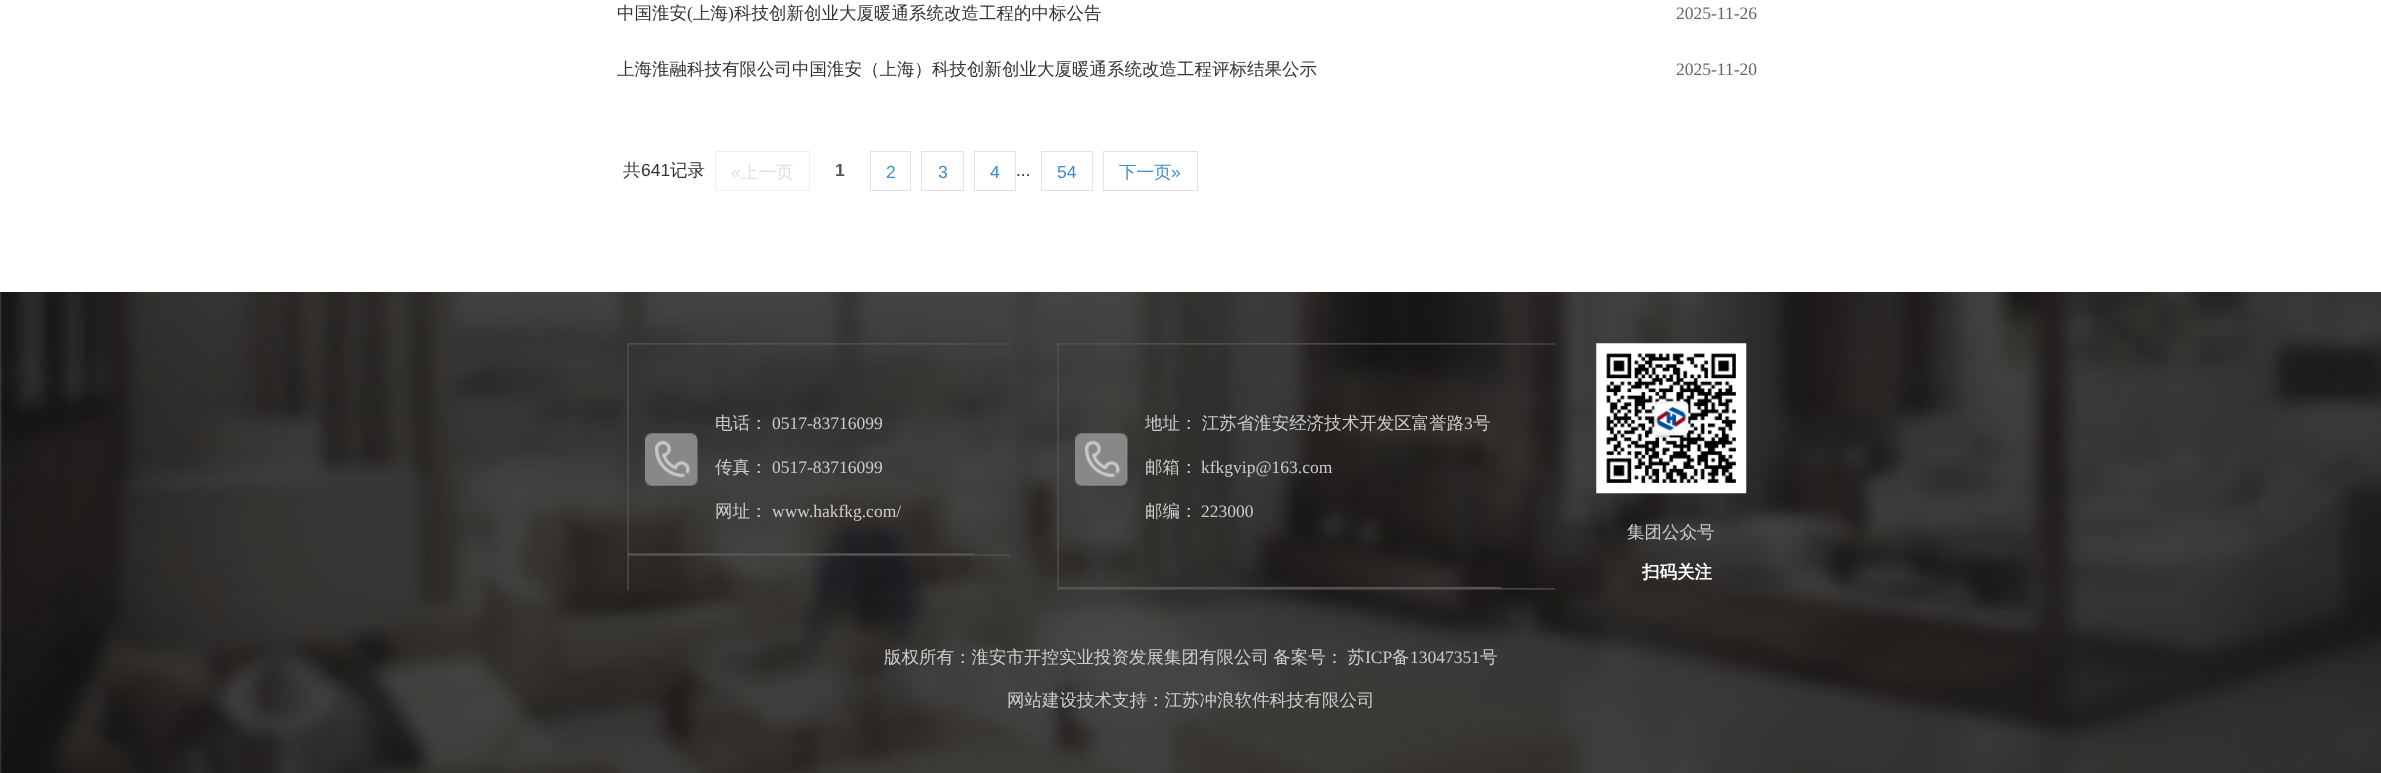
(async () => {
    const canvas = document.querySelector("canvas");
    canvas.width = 2381;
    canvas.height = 773;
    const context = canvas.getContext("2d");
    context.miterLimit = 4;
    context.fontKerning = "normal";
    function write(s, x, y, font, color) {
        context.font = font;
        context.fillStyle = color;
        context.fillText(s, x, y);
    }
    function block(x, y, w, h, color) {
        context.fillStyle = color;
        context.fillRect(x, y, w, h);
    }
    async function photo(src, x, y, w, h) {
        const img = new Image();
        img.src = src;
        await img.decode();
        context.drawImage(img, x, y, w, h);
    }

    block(0, 0, 2381, 773, "rgb(255, 255, 255)");
    write("中国淮安", 617, 19, "500 17.5px WenQuanYi Zen Hei", "rgb(51, 51, 51)");
    write("(", 687, 19, "17.5px Liberation Serif", "rgb(51, 51, 51)");
    write("上海", 693, 19, "500 17.5px WenQuanYi Zen Hei", "rgb(51, 51, 51)");
    write(")", 728, 19, "17.5px Liberation Serif", "rgb(51, 51, 51)");
    write("科技创新创业大厦暖通系统改造工程的中标公告", 734, 19, "500 17.5px WenQuanYi Zen Hei", "rgb(51, 51, 51)");
    write("2025-11-26", 1676, 19, "17.5px Liberation Serif", "rgb(102, 102, 102)");
    write("上海淮融科技有限公司中国淮安（上海）科技创新创业大厦暖通系统改造工程评标结果公示", 617, 75, "500 17.5px WenQuanYi Zen Hei", "rgb(51, 51, 51)");
    write("2025-11-20", 1676, 75, "17.5px Liberation Serif", "rgb(102, 102, 102)");
    write("共", 623, 176, "500 17.5px WenQuanYi Zen Hei", "rgb(51, 51, 51)");
    write("641", 641, 176, "17.5px Liberation Sans", "rgb(51, 51, 51)");
    write("记录", 670, 176, "500 17.5px WenQuanYi Zen Hei", "rgb(51, 51, 51)");
    context.strokeStyle = "rgb(238, 238, 238)";
    context.strokeRect(715.5, 151.5, 94, 39);
    write("«", 731, 178, "17.5px Liberation Sans", "rgb(221, 221, 221)");
    write("上一页", 741, 178, "500 17.5px WenQuanYi Zen Hei", "rgb(221, 221, 221)");
    write("1", 835, 176, "bold 17.5px Liberation Sans", "rgb(85, 85, 85)");
    context.strokeStyle = "rgb(225, 226, 227)";
    context.strokeRect(870.5, 151.5, 40, 39);
    write("2", 886, 178, "17.5px Liberation Sans", "rgb(59, 141, 209)");
    context.strokeRect(921.5, 151.5, 42, 39);
    write("3", 938, 178, "17.5px Liberation Sans", "rgb(59, 141, 209)");
    context.strokeRect(974.5, 151.5, 41, 39);
    write("4", 990, 178, "17.5px Liberation Sans", "rgb(59, 141, 209)");
    write("...", 1016, 176, "17.5px Liberation Sans", "rgb(51, 51, 51)");
    context.strokeRect(1041.5, 151.5, 51, 39);
    write("54", 1057, 178, "17.5px Liberation Sans", "rgb(59, 141, 209)");
    context.strokeRect(1103.5, 151.5, 94, 39);
    write("下一页", 1119, 178, "500 17.5px WenQuanYi Zen Hei", "rgb(59, 141, 209)");
    write("»", 1171, 178, "17.5px Liberation Sans", "rgb(59, 141, 209)");
    await photo("media/1.png", 0, 292, 2381, 481);
    await photo("media/2.png", 627, 343, 383, 248);
    write("电话：", 715, 429, "500 17.5px WenQuanYi Zen Hei", "rgb(204, 204, 204)");
    write("0517-83716099", 772, 429, "17.5px Liberation Serif", "rgb(204, 204, 204)");
    await photo("media/3.png", 645, 433, 53, 53);
    write("传真：", 715, 473, "500 17.5px WenQuanYi Zen Hei", "rgb(204, 204, 204)");
    write("0517-83716099", 772, 473, "17.5px Liberation Serif", "rgb(204, 204, 204)");
    write("网址：", 715, 517, "500 17.5px WenQuanYi Zen Hei", "rgb(204, 204, 204)");
    write("www.hakfkg.com/", 772, 517, "17.5px Liberation Serif", "rgb(204, 204, 204)");
    await photo("media/4.png", 1057, 343, 498, 248);
    context.wordSpacing = "-1px";
    write("地址： 江苏省淮安经济技术开发区富誉路", 1145, 429, "500 17.5px WenQuanYi Zen Hei", "rgb(204, 204, 204)");
    context.wordSpacing = "0px";
    write("3", 1464, 429, "17.5px Liberation Serif", "rgb(204, 204, 204)");
    write("号", 1473, 429, "500 17.5px WenQuanYi Zen Hei", "rgb(204, 204, 204)");
    await photo("media/5.png", 1075, 433, 53, 53);
    write("邮箱：", 1145, 473, "500 17.5px WenQuanYi Zen Hei", "rgb(204, 204, 204)");
    write("kfkgvip@163.com", 1201, 473, "17.5px Liberation Serif", "rgb(204, 204, 204)");
    write("邮编：", 1145, 517, "500 17.5px WenQuanYi Zen Hei", "rgb(204, 204, 204)");
    write("223000", 1201, 517, "17.5px Liberation Serif", "rgb(204, 204, 204)");
    await photo("media/6.png", 1596, 343, 151, 151);
    write("集团公众号", 1627, 538, "500 17.5px WenQuanYi Zen Hei", "rgb(204, 204, 204)");
    write("扫码关注", 1642, 578, "bold 17.5px WenQuanYi Zen Hei", "rgb(255, 255, 255)");
    context.wordSpacing = "-1px";
    write("版权所有：淮安市开控实业投资发展集团有限公司 备案号： 苏", 884, 663, "500 17.5px WenQuanYi Zen Hei", "rgb(204, 204, 204)");
    context.wordSpacing = "0px";
    write("ICP", 1365, 663, "17.5px Liberation Serif", "rgb(204, 204, 204)");
    write("备", 1392, 663, "500 17.5px WenQuanYi Zen Hei", "rgb(204, 204, 204)");
    write("13047351", 1410, 663, "17.5px Liberation Serif", "rgb(204, 204, 204)");
    write("号", 1480, 663, "500 17.5px WenQuanYi Zen Hei", "rgb(204, 204, 204)");
    write("网站建设技术支持：江苏冲浪软件科技有限公司", 1007, 706, "500 17.5px WenQuanYi Zen Hei", "rgb(204, 204, 204)");
})();
